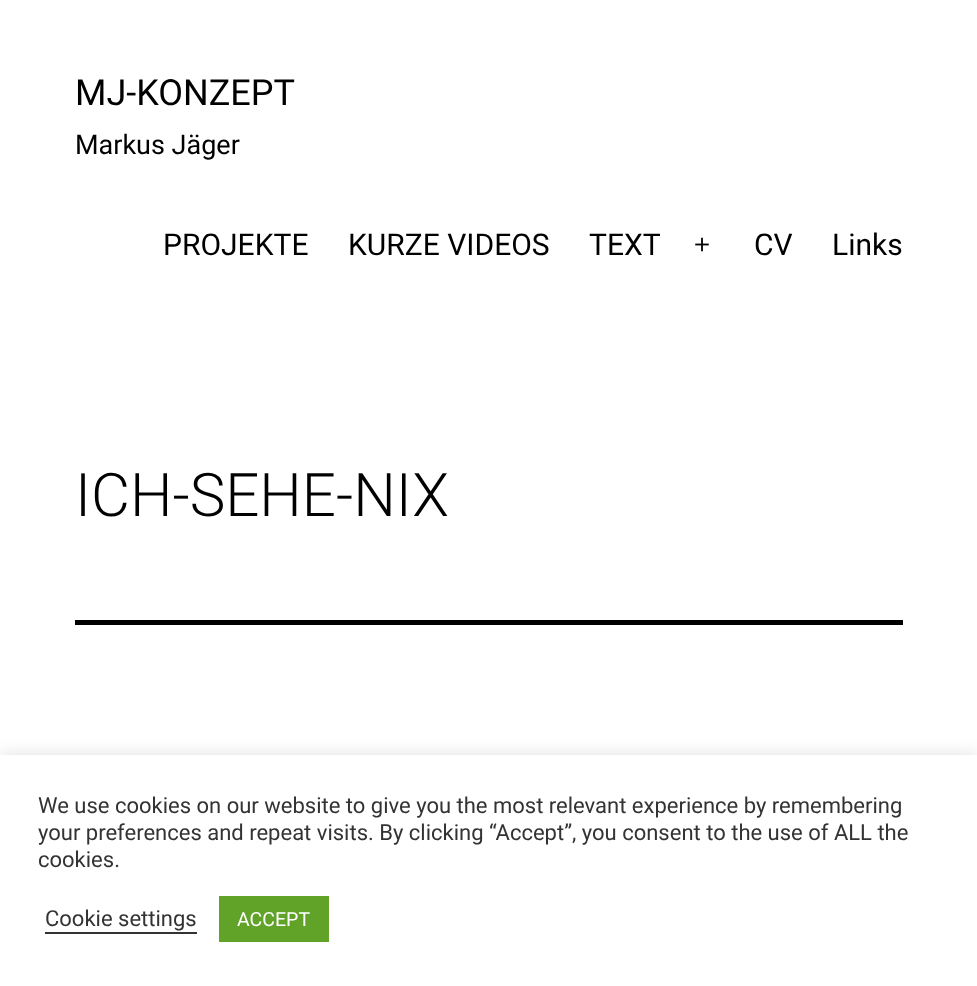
(async () => {
    const canvas = document.querySelector("canvas");
    canvas.width = 977;
    canvas.height = 986;
    const context = canvas.getContext("2d");
    context.miterLimit = 4;
    context.fontKerning = "normal";
    function write(s, x, y, font, color) {
        context.font = font;
        context.fillStyle = color;
        context.fillText(s, x, y);
    }
    function block(x, y, w, h, color) {
        context.fillStyle = color;
        context.fillRect(x, y, w, h);
    }
    async function photo(src, x, y, w, h) {
        const img = new Image();
        img.src = src;
        await img.decode();
        context.drawImage(img, x, y, w, h);
    }

    block(0, 0, 977, 986, "rgb(255, 255, 255)");
    write("MJ-KONZEPT", 75, 105, "36px Roboto", "rgb(0, 0, 0)");
    write("Markus Jäger", 75, 154, "27px Roboto", "rgb(0, 0, 0)");
    write("PROJEKTE", 163, 255, "30px Roboto", "rgb(0, 0, 0)");
    write("KURZE VIDEOS", 348, 255, "30px Roboto", "rgb(0, 0, 0)");
    write("TEXT", 589, 255, "30px Roboto", "rgb(0, 0, 0)");
    await photo("media/1.png", 695, 237, 14, 15);
    write("CV", 754, 255, "30px Roboto", "rgb(0, 0, 0)");
    write("Links", 832, 255, "30px Roboto", "rgb(0, 0, 0)");
    block(75, 620, 828, 5, "rgb(0, 0, 0)");
    write("ICH-SEHE-NIX", 75, 516, "300 60px Roboto", "rgb(0, 0, 0)");
    context.fillStyle = "rgba(172, 171, 171, 0.3)";
    context.filter = "blur(7.5px)";
    context.beginPath();
    context.rect(0, 753, 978, 233);
    context.fill();
    context.filter = "none";
    block(0, 755, 977, 231, "rgb(255, 255, 255)");
    write("We use cookies on our website to give you the most relevant experience by remembering", 38, 813, "22px Roboto", "rgb(51, 51, 51)");
    write("your preferences and repeat visits. By clicking “Accept”, you consent to the use of ALL the", 38, 840, "22px Roboto", "rgb(51, 51, 51)");
    write("cookies.", 38, 867, "22px Roboto", "rgb(51, 51, 51)");
    write("Cookie settings", 45, 926, "22px Roboto", "rgb(51, 51, 51)");
    block(45, 932, 152, 2, "rgb(51, 51, 51)");
    block(219, 896, 110, 46, "rgb(97, 162, 41)");
    write("ACCEPT", 237, 926, "19.5px Roboto", "rgb(255, 255, 255)");
})();
